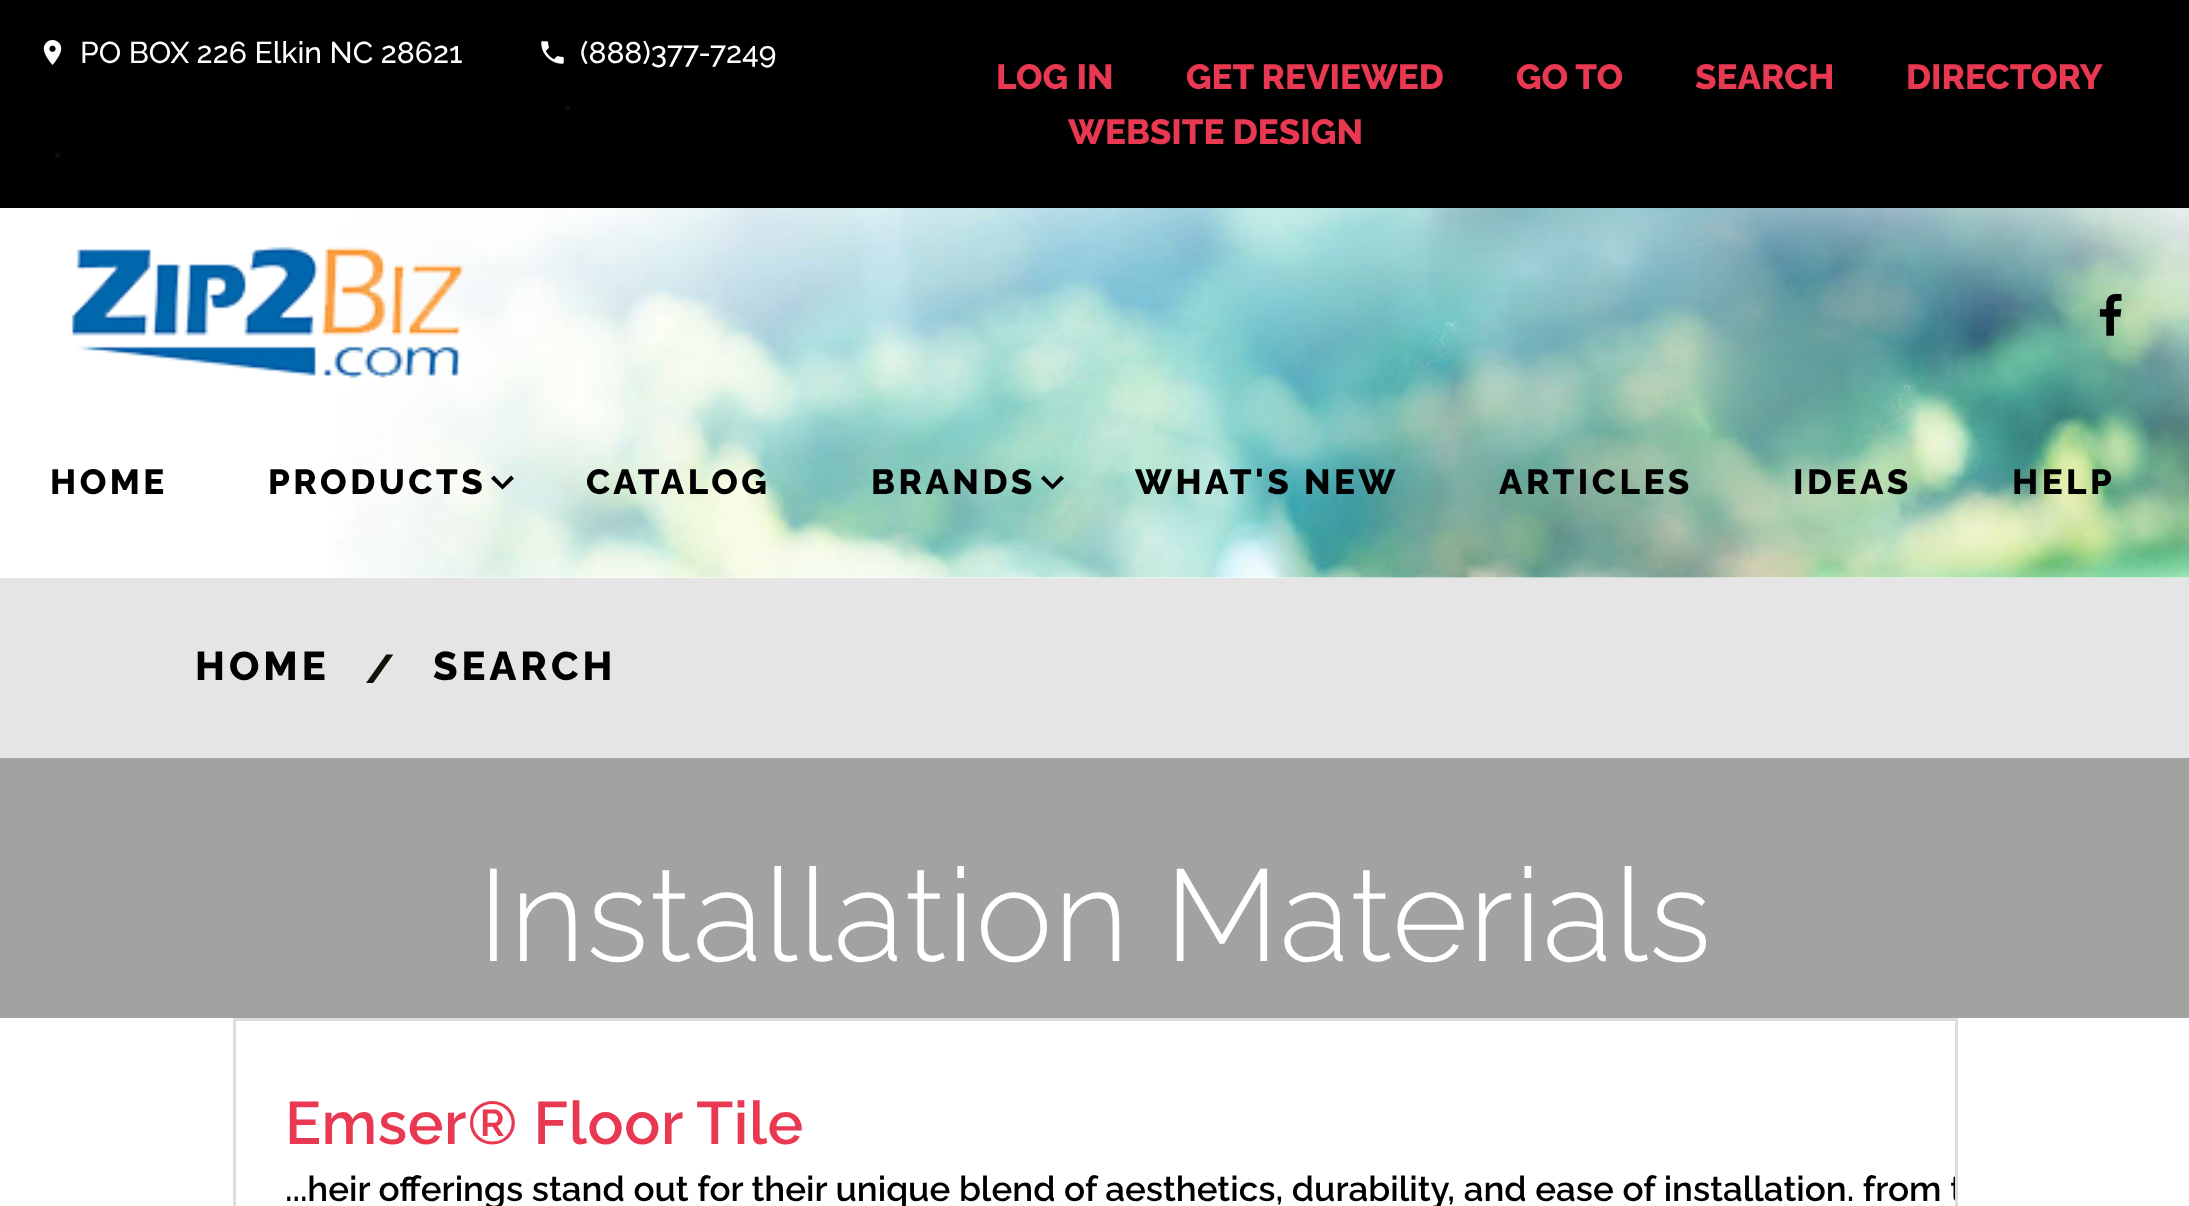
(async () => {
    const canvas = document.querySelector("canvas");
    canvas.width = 2189;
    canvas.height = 1206;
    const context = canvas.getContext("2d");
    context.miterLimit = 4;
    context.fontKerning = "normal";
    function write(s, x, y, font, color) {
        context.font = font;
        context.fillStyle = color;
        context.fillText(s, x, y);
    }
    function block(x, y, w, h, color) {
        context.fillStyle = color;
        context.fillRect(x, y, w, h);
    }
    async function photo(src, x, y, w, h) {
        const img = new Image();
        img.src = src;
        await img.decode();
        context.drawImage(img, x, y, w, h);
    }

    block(0, 0, 2189, 1206, "rgb(255, 255, 255)");
    await photo("media/1.png", 335, 208, 1854, 370);
    block(0, 0, 2189, 208, "rgb(0, 0, 0)");
    await photo("media/2.png", 43, 40, 19, 25);
    write("PO BOX 226 Elkin NC 28621", 80, 63, "500 30px Raleway", "rgb(255, 255, 255)");
    await photo("media/3.png", 541, 41, 23, 23);
    write("(888)377-7249", 580, 63, "500 30px Raleway", "rgb(255, 255, 255)");
    context.fillStyle = "rgb(15, 18, 7)";
    context.beginPath();
    context.arc(567.5, 107.5, 2.5, 0, Math.PI * 2);
    context.fill();
    context.beginPath();
    context.arc(57.5, 155.5, 2.5, 0, Math.PI * 2);
    context.fill();
    write("LOG IN", 996, 89, "800 35px Raleway", "rgb(233, 56, 81)");
    write("GET REVIEWED", 1186, 89, "800 35px Raleway", "rgb(233, 56, 81)");
    write("GO TO", 1516, 89, "800 35px Raleway", "rgb(233, 56, 81)");
    write("SEARCH", 1695, 89, "800 35px Raleway", "rgb(233, 56, 81)");
    write("DIRECTORY", 1906, 89, "800 35px Raleway", "rgb(233, 56, 81)");
    write("WEBSITE DESIGN", 1068, 144, "800 35px Raleway", "rgb(233, 56, 81)");
    await photo("media/4.png", 71, 246, 393, 132);
    await photo("media/5.png", 2099, 293, 23, 43);
    context.letterSpacing = "3.5px";
    write("HOME", 50, 494, "800 35px Raleway", "rgb(0, 0, 0)");
    write("PRODUCTS", 268, 494, "800 35px Raleway", "rgb(0, 0, 0)");
    context.beginPath();
    context.moveTo(511, 475.5);
    context.lineTo(514, 478.5);
    context.lineTo(502.5, 489.5);
    context.lineTo(491, 478.5);
    context.lineTo(494, 475.5);
    context.lineTo(502.5, 484.5);
    context.closePath();
    context.fill();
    write("CATALOG", 586, 494, "800 35px Raleway", "rgb(0, 0, 0)");
    write("BRANDS", 871, 494, "800 35px Raleway", "rgb(0, 0, 0)");
    context.beginPath();
    context.moveTo(1061, 475.5);
    context.lineTo(1064, 478.5);
    context.lineTo(1052.5, 489.5);
    context.lineTo(1041, 478.5);
    context.lineTo(1044, 475.5);
    context.lineTo(1052.5, 484.5);
    context.closePath();
    context.fill();
    write("WHAT'S NEW", 1135, 494, "800 35px Raleway", "rgb(0, 0, 0)");
    write("ARTICLES", 1499, 494, "800 35px Raleway", "rgb(0, 0, 0)");
    write("IDEAS", 1793, 494, "800 35px Raleway", "rgb(0, 0, 0)");
    write("HELP", 2012, 494, "800 35px Raleway", "rgb(0, 0, 0)");
    block(0, 578, 2189, 180, "rgb(229, 229, 229)");
    context.letterSpacing = "4px";
    write("HOME", 195, 680, "800 40px Raleway", "rgb(0, 0, 0)");
    write("/", 365, 683, "800 40px Raleway", "rgb(15, 18, 7)");
    write("SEARCH", 433, 680, "800 40px Raleway", "rgb(0, 0, 0)");
    block(0, 758, 2189, 260, "rgb(161, 163, 160)");
    context.letterSpacing = "1.3px";
    write("Installation Materials", 478, 961, "300 130px Raleway", "rgb(255, 255, 255)");
    context.strokeStyle = "rgb(221, 221, 221)";
    context.lineWidth = 3;
    context.strokeRect(234.5, 1019.5, 1722, 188);
    context.letterSpacing = "0.6px";
    write("Emser® Floor Tile", 285, 1144, "600 60px Raleway", "rgb(233, 56, 81)");
    context.save();
    context.beginPath();
    context.rect(235, 1020, 1720, 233);
    context.clip();
    context.letterSpacing = "0px";
    write("...heir offerings stand out for their unique blend of aesthetics, durability, and ease of installation. from t", 285, 1201, "600 35px Raleway", "rgb(0, 0, 0)");
    context.restore();
})();
